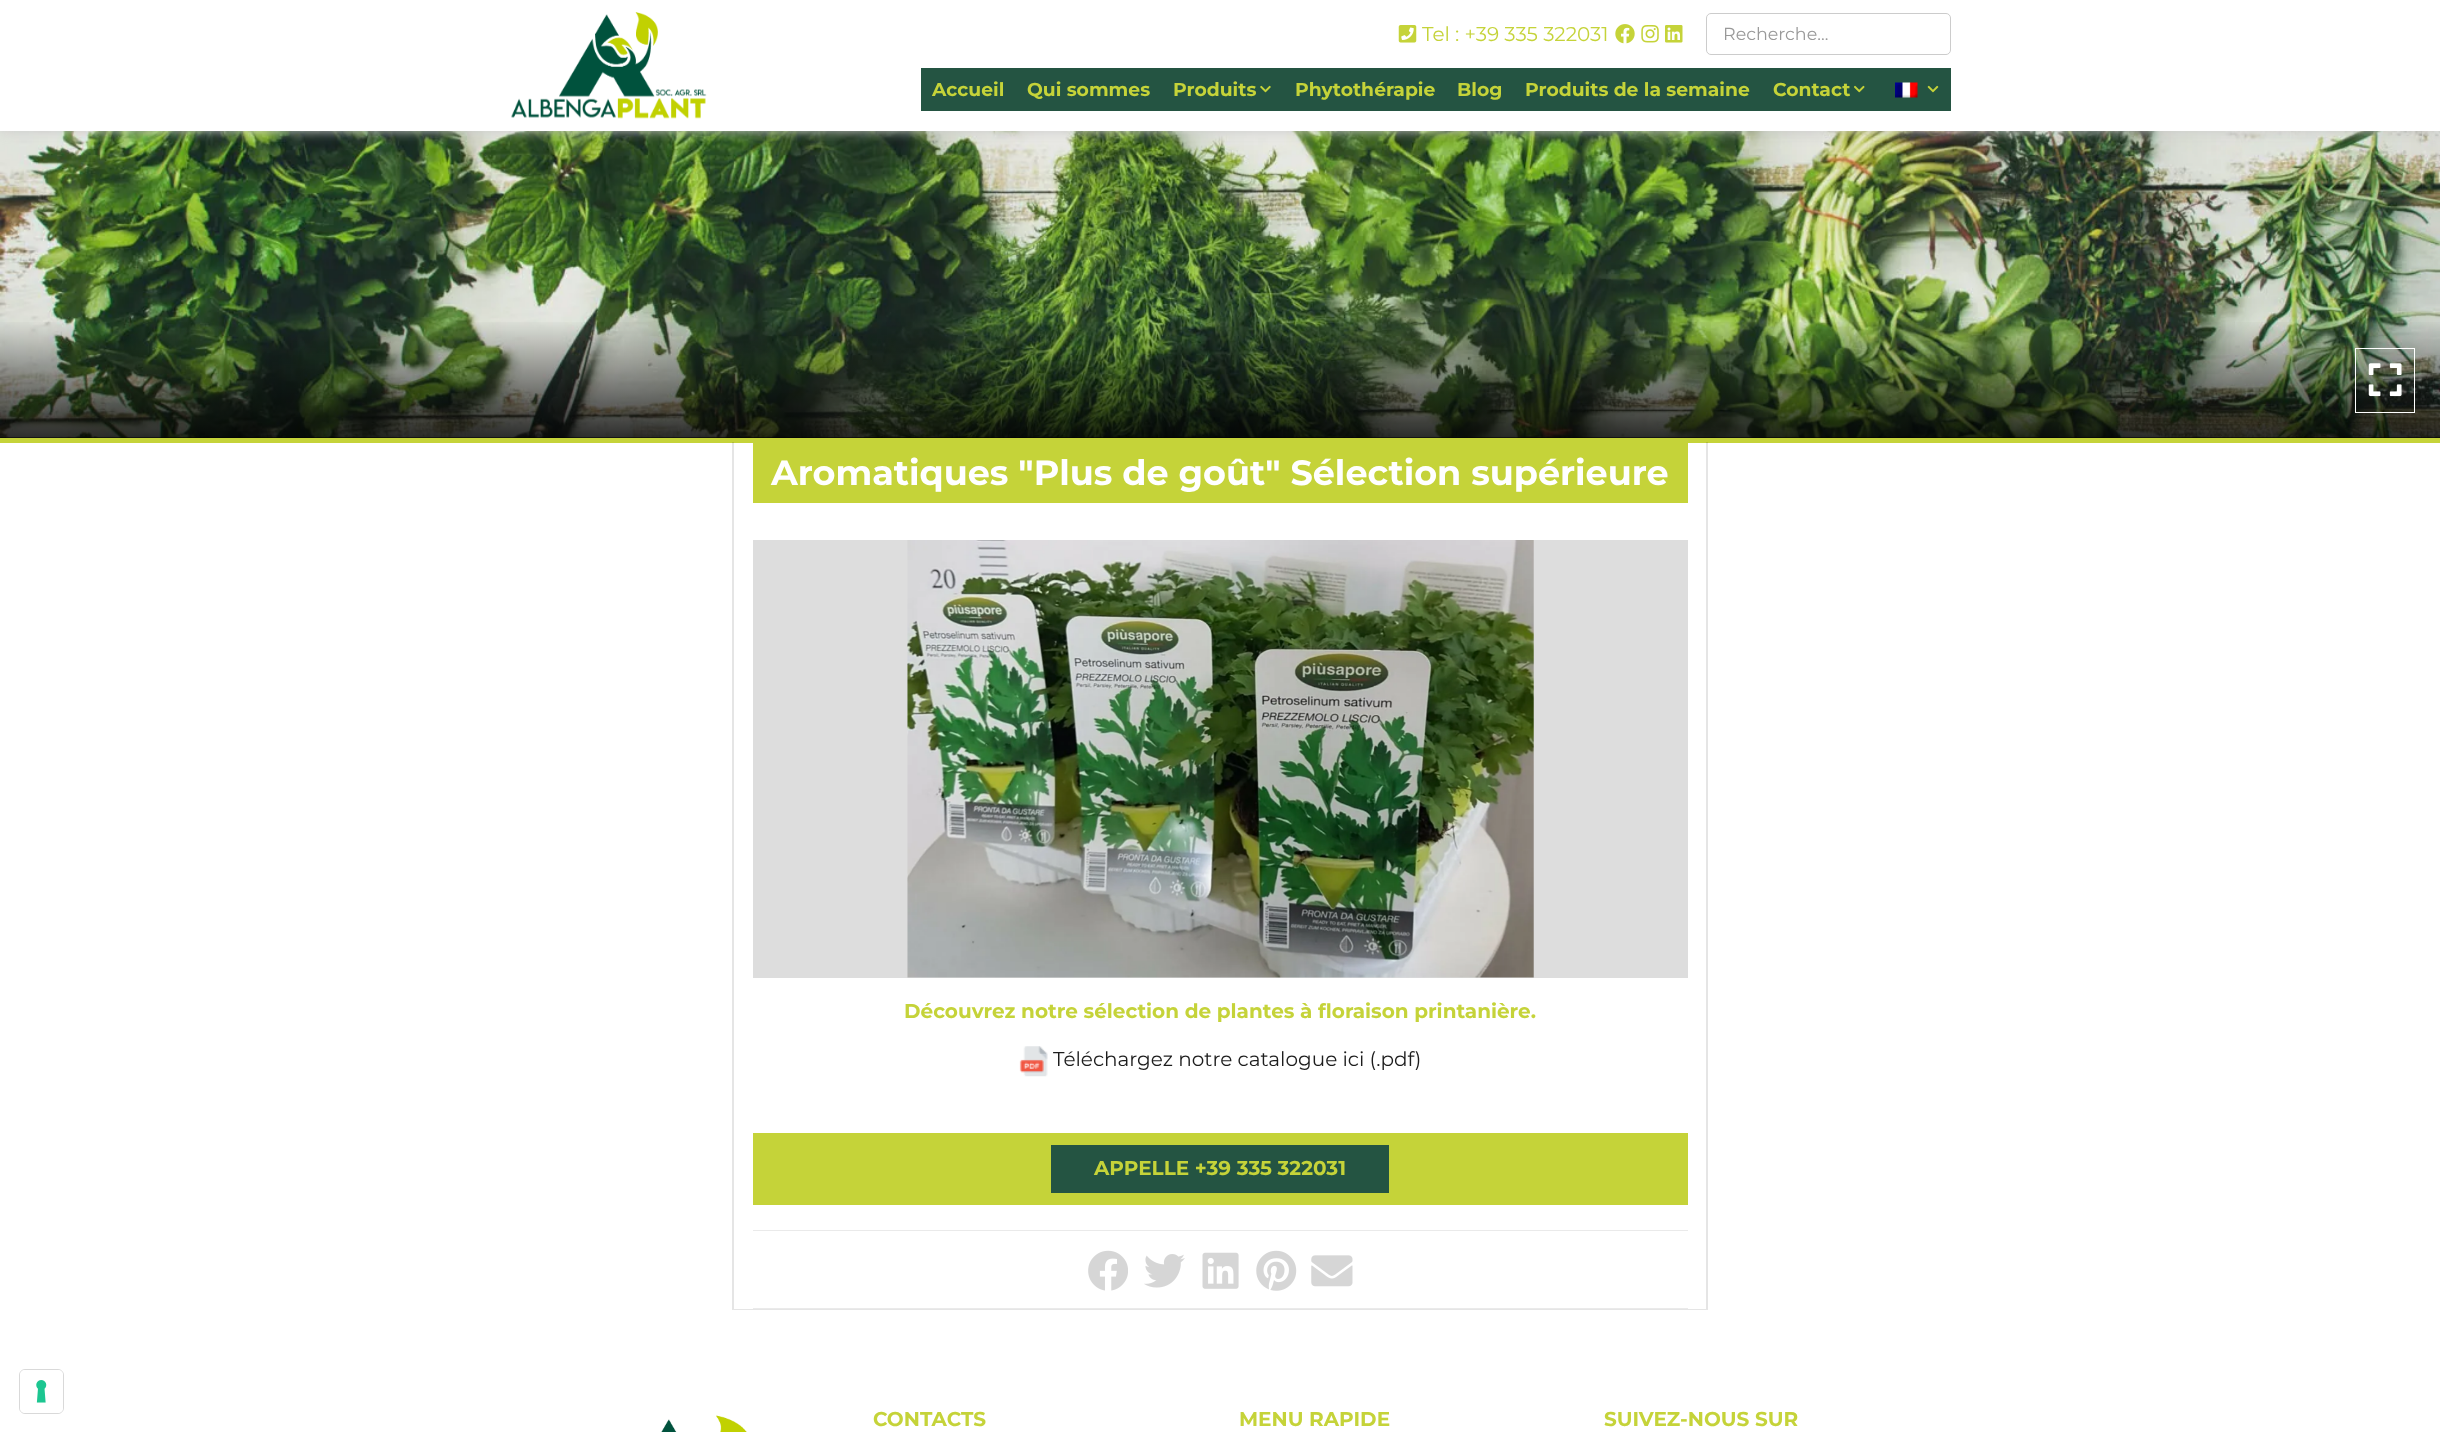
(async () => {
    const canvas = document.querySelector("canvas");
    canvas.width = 2440;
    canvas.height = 1432;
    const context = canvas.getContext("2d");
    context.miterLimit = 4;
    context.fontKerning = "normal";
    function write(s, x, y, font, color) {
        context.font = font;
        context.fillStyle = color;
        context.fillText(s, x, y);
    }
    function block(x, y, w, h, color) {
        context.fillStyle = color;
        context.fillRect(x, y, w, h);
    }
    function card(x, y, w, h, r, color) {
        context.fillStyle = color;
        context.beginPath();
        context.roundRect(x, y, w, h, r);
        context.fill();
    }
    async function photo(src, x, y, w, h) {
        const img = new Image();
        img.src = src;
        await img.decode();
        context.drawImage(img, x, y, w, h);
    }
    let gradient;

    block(0, 0, 2440, 1432, "rgb(255, 255, 255)");
    context.beginPath();
    context.roundRect(19.5, 1369.5, 44, 44, 5.5);
    context.strokeStyle = "rgb(217, 217, 217)";
    context.stroke();
    card(20, 1370, 43, 43, 5, "rgb(255, 255, 255)");
    await photo("media/1.png", 36, 1380, 11, 23);
    block(0, 437, 2440, 1, "rgb(0, 0, 0)");
    await photo("media/11.png", 0, 131, 2440, 307);
    context.fillStyle = "rgb(204, 204, 204)";
    context.filter = "blur(6px)";
    context.beginPath();
    context.rect(0, 0, 2440, 131);
    context.fill();
    context.filter = "none";
    block(0, 0, 2440, 131, "rgb(255, 255, 255)");
    await photo("media/2.png", 511, 12, 196, 107);
    await photo("media/3.png", 1398, 25, 19, 18);
    write("Tel : +39 335 322031", 1422, 41, "100 20px 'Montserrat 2'", "rgb(197, 211, 57)");
    await photo("media/4.png", 1615, 24, 20, 20);
    await photo("media/5.png", 1641, 25, 18, 18);
    await photo("media/6.png", 1665, 25, 18, 18);
    context.beginPath();
    context.roundRect(1706.5, 13.5, 244, 41, 4.5);
    context.strokeStyle = "rgb(204, 204, 204)";
    context.stroke();
    write("Recherche...", 1723, 40, "100 17.5px 'Montserrat 2'", "rgb(153, 153, 153)");
    block(921, 68, 1030, 43, "rgb(36, 84, 66)");
    write("Accueil", 932, 96, "100 18.75px Montserrat", "rgb(197, 211, 57)");
    write("Qui sommes", 1027, 96, "100 18.75px Montserrat", "rgb(197, 211, 57)");
    write("Produits", 1173, 96, "100 18.75px Montserrat", "rgb(197, 211, 57)");
    await photo("media/7.png", 1260, 85, 11, 8);
    write("Phytothérapie", 1295, 96, "100 18.75px Montserrat", "rgb(197, 211, 57)");
    write("Blog", 1457, 96, "100 18.75px Montserrat", "rgb(197, 211, 57)");
    write("Produits de la semaine", 1525, 96, "100 18.75px Montserrat", "rgb(197, 211, 57)");
    write("Contact", 1773, 96, "100 18.75px Montserrat", "rgb(197, 211, 57)");
    await photo("media/8.png", 1854, 85, 11, 8);
    await photo("media/9.png", 1895, 82, 23, 16);
    await photo("media/10.png", 1927, 85, 12, 8);
    block(0, 438, 2440, 5, "rgb(197, 211, 57)");
    gradient = context.createLinearGradient(1220, 438, 1220, 319);
    gradient.addColorStop(0, "rgba(0, 0, 0, 0.8)");
    gradient.addColorStop(1, "rgba(0, 0, 0, 0)");
    context.fillStyle = gradient;
    context.fillRect(0, 322, 2440, 116);
    context.strokeStyle = "rgb(255, 255, 255)";
    context.strokeRect(2355.5, 348.5, 59, 64);
    await photo("media/12.png", 2368, 363, 34, 34);
    context.fillStyle = "rgba(0, 0, 0, 0.1)";
    context.beginPath();
    context.moveTo(1708, 442);
    context.lineTo(1708, 1310);
    context.lineTo(1706, 1309);
    context.lineTo(1706, 442);
    context.closePath();
    context.fill();
    context.beginPath();
    context.moveTo(1708, 1310);
    context.lineTo(732, 1310);
    context.lineTo(734, 1309);
    context.lineTo(1706, 1309);
    context.closePath();
    context.fill();
    context.beginPath();
    context.moveTo(732, 1310);
    context.lineTo(732, 442);
    context.lineTo(734, 442);
    context.lineTo(734, 1309);
    context.closePath();
    context.fill();
    block(753, 443, 935, 60, "rgb(197, 211, 57)");
    write("Aromatiques \"Plus de goût\" Sélection supérieure", 771, 485, "100 35px Montserrat", "rgb(255, 255, 255)");
    block(753, 540, 935, 438, "rgb(221, 221, 221)");
    await photo("media/13.png", 907, 540, 627, 438);
    write("Découvrez notre sélection de plantes à floraison printanière.", 904, 1018, "100 20px Montserrat", "rgb(197, 211, 57)");
    await photo("media/14.png", 1019, 1046, 29, 31);
    write("Téléchargez notre catalogue ici (.pdf)", 1053, 1066, "100 20px 'Montserrat 2'", "rgb(29, 29, 29)");
    block(753, 1133, 935, 72, "rgb(197, 211, 57)");
    block(1051, 1145, 338, 48, "rgb(36, 84, 66)");
    write("APPELLE +39 335 322031", 1094, 1175, "100 20px Montserrat", "rgb(197, 211, 57)");
    block(753, 1230, 935, 1, "rgb(234, 234, 234)");
    block(753, 1308, 935, 1, "rgb(234, 234, 234)");
    await photo("media/15.png", 1088, 1250, 40, 41);
    await photo("media/16.png", 1144, 1254, 41, 34);
    await photo("media/17.png", 1202, 1252, 37, 37);
    await photo("media/18.png", 1256, 1250, 41, 41);
    await photo("media/19.png", 1311, 1255, 42, 32);
    await photo("media/20.png", 661, 1415, 86, 17);
    write("CONTACTS", 873, 1426, "100 20px Montserrat", "rgb(197, 211, 57)");
    write("MENU RAPIDE", 1239, 1426, "100 20px Montserrat", "rgb(197, 211, 57)");
    write("SUIVEZ-NOUS SUR", 1604, 1426, "100 20px Montserrat", "rgb(197, 211, 57)");
})();
